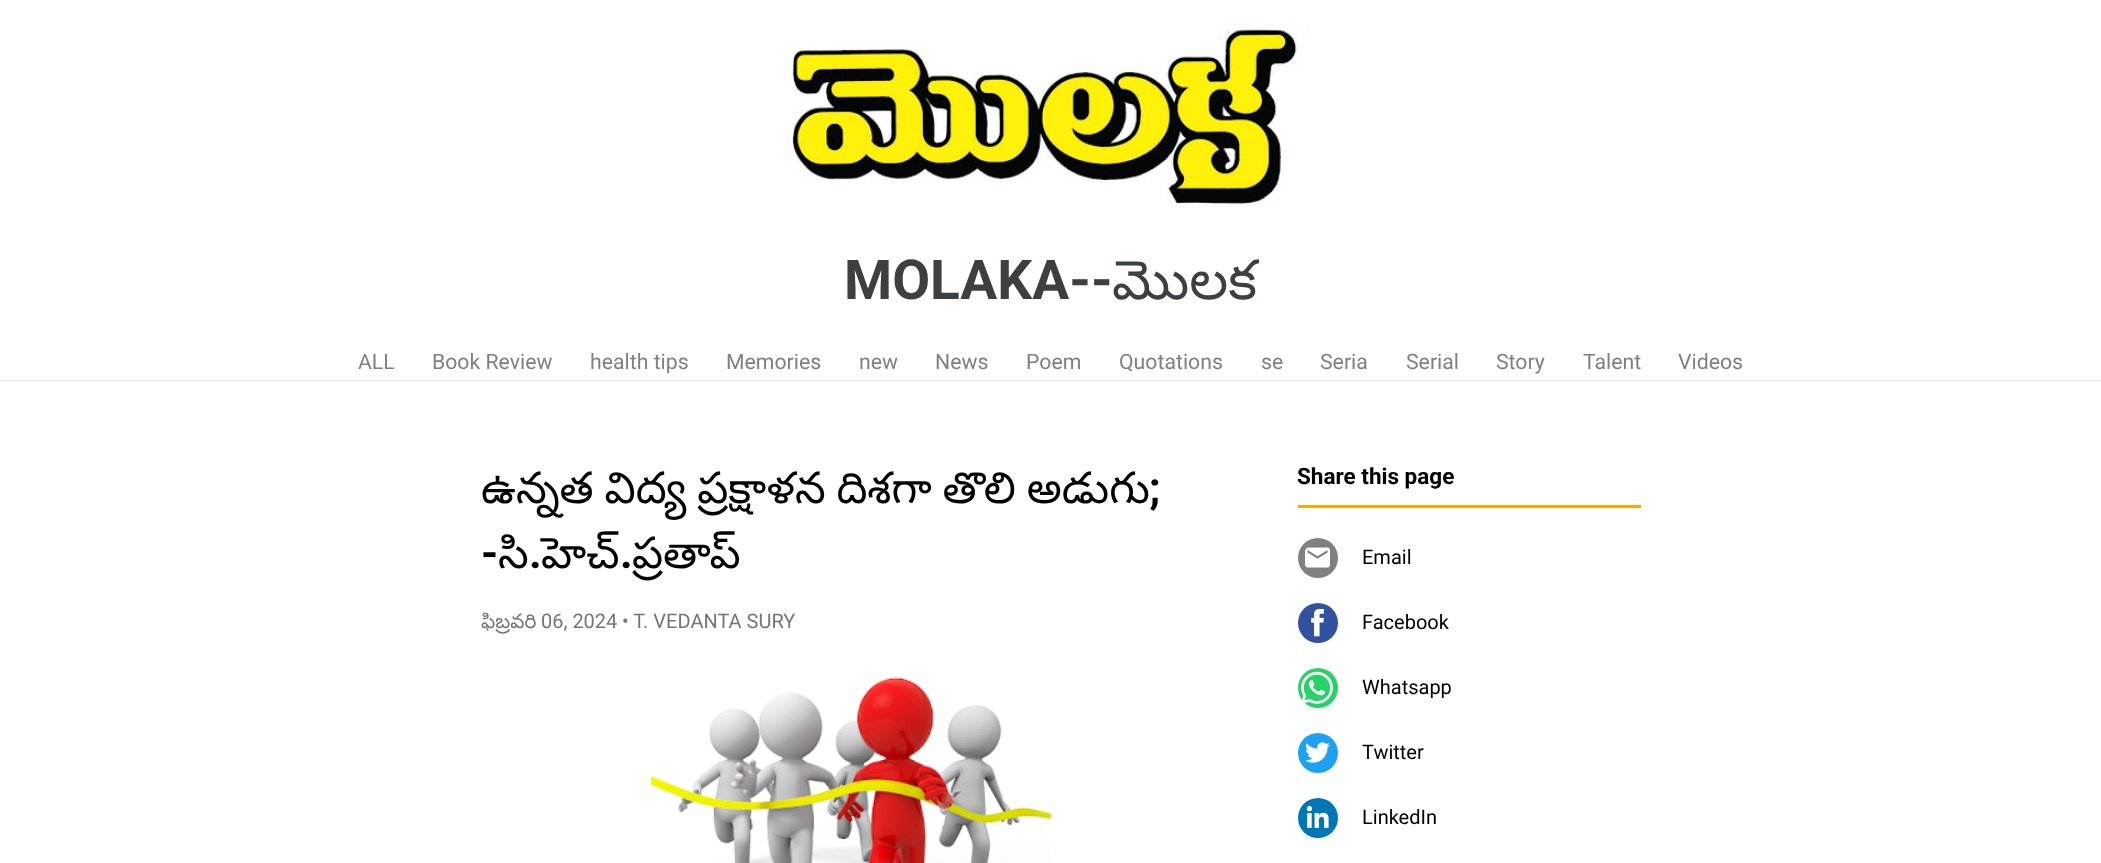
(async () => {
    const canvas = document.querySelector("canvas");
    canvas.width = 2101;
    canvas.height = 863;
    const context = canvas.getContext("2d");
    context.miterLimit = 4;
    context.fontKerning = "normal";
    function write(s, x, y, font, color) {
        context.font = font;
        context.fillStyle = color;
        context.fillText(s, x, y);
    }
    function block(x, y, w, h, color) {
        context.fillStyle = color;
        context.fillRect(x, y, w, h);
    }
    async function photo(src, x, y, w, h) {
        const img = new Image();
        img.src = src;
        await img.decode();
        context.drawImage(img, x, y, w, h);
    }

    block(0, 0, 2101, 863, "rgb(255, 255, 255)");
    block(0, 380, 2101, 1, "rgb(224, 224, 224)");
    await photo("media/1.png", 788, 24, 520, 184);
    write("MOLAKA--", 844, 299, "bold 55px Roboto", "rgb(60, 64, 67)");
    write("మొలక", 1112, 299, "55px Noto Sans Telugu", "rgb(60, 64, 67)");
    write("ALL", 358, 369, "21.25px Roboto", "rgb(128, 128, 128)");
    write("Book Review", 432, 369, "21.25px Roboto", "rgb(128, 128, 128)");
    write("health tips", 590, 369, "21.25px Roboto", "rgb(128, 128, 128)");
    write("Memories", 726, 369, "21.25px Roboto", "rgb(128, 128, 128)");
    write("new", 859, 369, "21.25px Roboto", "rgb(128, 128, 128)");
    write("News", 935, 369, "21.25px Roboto", "rgb(128, 128, 128)");
    write("Poem", 1026, 369, "21.25px Roboto", "rgb(128, 128, 128)");
    write("Quotations", 1119, 369, "21.25px Roboto", "rgb(128, 128, 128)");
    write("se", 1261, 369, "21.25px Roboto", "rgb(128, 128, 128)");
    write("Seria", 1320, 369, "21.25px Roboto", "rgb(128, 128, 128)");
    write("Serial", 1406, 369, "21.25px Roboto", "rgb(128, 128, 128)");
    write("Story", 1496, 369, "21.25px Roboto", "rgb(128, 128, 128)");
    write("Talent", 1583, 369, "21.25px Roboto", "rgb(128, 128, 128)");
    write("Videos", 1678, 369, "21.25px Roboto", "rgb(128, 128, 128)");
    context.wordSpacing = "-1.5px";
    write("ఉన్నత విద్య ప్రక్షాళన దిశగా తొలి అడుగు", 481, 503, "43.75px Noto Sans Telugu", "rgb(0, 0, 0)");
    context.wordSpacing = "0px";
    write(";", 1149, 503, "bold 43.75px Roboto", "rgb(0, 0, 0)");
    write("-", 481, 568, "bold 43.75px Roboto", "rgb(0, 0, 0)");
    write("సి", 498, 568, "43.75px Noto Sans Telugu", "rgb(0, 0, 0)");
    write("హెచ్", 541, 568, "43.75px Noto Sans Telugu", "rgb(0, 0, 0)");
    write(".", 620, 568, "bold 43.75px Roboto", "rgb(0, 0, 0)");
    write("ప్రతాప్", 632, 568, "43.75px Noto Sans Telugu", "rgb(0, 0, 0)");
    write(".", 529, 568, "bold 43.75px Roboto", "rgb(0, 0, 0)");
    write("ఫిబ్రవరి", 481, 628, "20px Noto Sans Telugu", "rgb(117, 117, 117)");
    write("06, 2024", 541, 628, "20px Roboto", "rgb(117, 117, 117)");
    write("• T. VEDANTA SURY", 622, 628, "20px Roboto", "rgb(117, 117, 117)");
    await photo("media/2.png", 651, 677, 401, 186);
    block(1298, 505, 343, 3, "rgb(255, 165, 0)");
    write("Share this page", 1297, 484, "bold 22.5px Roboto", "rgb(0, 0, 0)");
    context.fillStyle = "rgb(128, 128, 128)";
    context.beginPath();
    context.arc(1318, 558, 20, 0, Math.PI * 2);
    context.fill();
    await photo("media/3.png", 1305, 547, 25, 21);
    write("Email", 1362, 564, "20px Roboto", "rgb(0, 0, 0)");
    context.fillStyle = "rgb(50, 82, 159)";
    context.beginPath();
    context.arc(1318, 623, 20, 0, Math.PI * 2);
    context.fill();
    await photo("media/4.png", 1311, 609, 13, 28);
    write("Facebook", 1362, 629, "20px Roboto", "rgb(0, 0, 0)");
    context.fillStyle = "rgb(37, 211, 102)";
    context.beginPath();
    context.arc(1318, 688, 20, 0, Math.PI * 2);
    context.fill();
    await photo("media/5.png", 1301, 671, 32, 33);
    write("Whatsapp", 1362, 694, "20px Roboto", "rgb(0, 0, 0)");
    context.fillStyle = "rgb(29, 161, 242)";
    context.beginPath();
    context.arc(1318, 753, 20, 0, Math.PI * 2);
    context.fill();
    await photo("media/6.png", 1305, 742, 25, 21);
    write("Twitter", 1362, 759, "20px Roboto", "rgb(0, 0, 0)");
    context.fillStyle = "rgb(0, 119, 181)";
    context.beginPath();
    context.arc(1318, 818, 20, 0, Math.PI * 2);
    context.fill();
    await photo("media/7.png", 1306, 805, 23, 23);
    write("LinkedIn", 1362, 824, "20px Roboto", "rgb(0, 0, 0)");
})();
